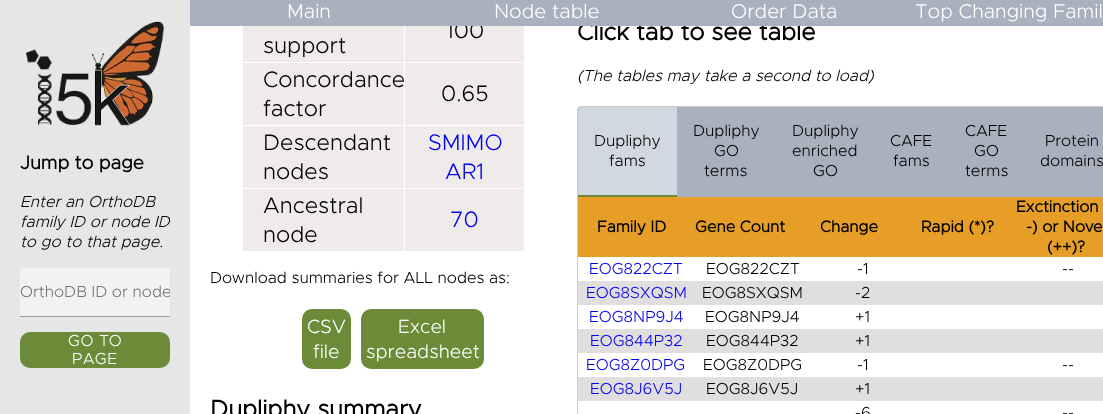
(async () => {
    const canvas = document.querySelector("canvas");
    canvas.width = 1103;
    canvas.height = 414;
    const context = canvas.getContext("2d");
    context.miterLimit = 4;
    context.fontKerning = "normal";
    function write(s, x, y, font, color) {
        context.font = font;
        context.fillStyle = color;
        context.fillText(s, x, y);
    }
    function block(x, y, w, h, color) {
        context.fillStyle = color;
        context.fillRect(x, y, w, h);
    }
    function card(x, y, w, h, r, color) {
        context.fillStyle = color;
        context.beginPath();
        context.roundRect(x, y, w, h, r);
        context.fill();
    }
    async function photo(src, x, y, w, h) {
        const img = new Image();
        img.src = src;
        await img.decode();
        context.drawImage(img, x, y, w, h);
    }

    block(0, 0, 1103, 414, "rgb(255, 255, 255)");
    block(0, 0, 190, 414, "rgb(230, 230, 230)");
    await photo("media/1.png", 26, 21, 138, 105);
    write("Jump to page", 20, 169, "bold 18.75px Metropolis", "rgb(0, 0, 0)");
    write("Enter an OrthoDB", 20, 207, "italic 300 16px Metropolis", "rgb(0, 0, 0)");
    write("family ID or node ID", 20, 227, "italic 300 16px Metropolis", "rgb(0, 0, 0)");
    write("to go to that page.", 20, 247, "italic 300 16px Metropolis", "rgb(0, 0, 0)");
    block(20, 268, 150, 48, "rgb(242, 242, 242)");
    block(20, 316, 150, 1, "rgb(158, 158, 158)");
    context.save();
    context.beginPath();
    context.rect(20, 282, 150, 20);
    context.clip();
    write("OrthoDB ID or node", 20, 297, "300 16px Metropolis", "rgb(117, 117, 117)");
    context.restore();
    card(20, 332, 150, 36, 10, "rgb(107, 139, 57)");
    context.letterSpacing = "0.5px";
    write("GO TO", 68, 346, "300 16px Metropolis", "rgb(255, 255, 255)");
    write("PAGE", 72, 364, "300 16px Metropolis", "rgb(255, 255, 255)");
    block(405, 26, 119, 36, "rgb(240, 235, 235)");
    context.letterSpacing = "0px";
    write("100", 446, 38, "300 22.5px Metropolis", "rgb(0, 0, 0)");
    write("Click tab to see table", 577, 40, "bold 24px Metropolis", "rgb(0, 0, 0)");
    block(190, 0, 913, 26, "rgb(168, 177, 189)");
    write("Main", 287, 18, "300 20px Metropolis", "rgb(255, 255, 255)");
    write("Node table", 494, 18, "300 20px Metropolis", "rgb(255, 255, 255)");
    write("Order Data", 731, 18, "300 20px Metropolis", "rgb(255, 255, 255)");
    write("Top Changing Famil", 915, 18, "300 20px Metropolis", "rgb(255, 255, 255)");
    block(243, 26, 161, 36, "rgb(240, 235, 235)");
    write("support", 263, 53, "300 22.5px Metropolis", "rgb(0, 0, 0)");
    block(243, 63, 161, 62, "rgb(240, 235, 235)");
    write("Concordance", 263, 87, "300 22.5px Metropolis", "rgb(0, 0, 0)");
    write("factor", 263, 116, "300 22.5px Metropolis", "rgb(0, 0, 0)");
    block(405, 63, 119, 62, "rgb(240, 235, 235)");
    write("0.65", 441, 101, "300 22.5px Metropolis", "rgb(0, 0, 0)");
    block(243, 126, 161, 62, "rgb(240, 235, 235)");
    write("Descendant", 263, 150, "300 22.5px Metropolis", "rgb(0, 0, 0)");
    write("nodes", 263, 179, "300 22.5px Metropolis", "rgb(0, 0, 0)");
    block(405, 126, 119, 62, "rgb(240, 235, 235)");
    write("SMIMO", 428, 150, "300 22.5px Metropolis", "rgb(0, 0, 238)");
    write("AR1", 445, 179, "300 22.5px Metropolis", "rgb(0, 0, 238)");
    block(243, 189, 161, 62, "rgb(240, 235, 235)");
    write("Ancestral", 263, 213, "300 22.5px Metropolis", "rgb(0, 0, 0)");
    write("node", 263, 242, "300 22.5px Metropolis", "rgb(0, 0, 0)");
    block(405, 189, 119, 62, "rgb(240, 235, 235)");
    write("70", 450, 227, "300 22.5px Metropolis", "rgb(0, 0, 238)");
    write("Download summaries for ALL nodes as:", 210, 283, "300 16px Metropolis", "rgb(0, 0, 0)");
    card(302, 309, 49, 60, 10, "rgb(107, 139, 57)");
    write("CSV", 307, 333, "300 19.25px Metropolis", "rgb(255, 255, 255)");
    write("file", 313, 358, "300 19.25px Metropolis", "rgb(255, 255, 255)");
    card(361, 309, 123, 60, 10, "rgb(107, 139, 57)");
    write("Excel", 398, 333, "300 19.25px Metropolis", "rgb(255, 255, 255)");
    write("spreadsheet", 366, 358, "300 19.25px Metropolis", "rgb(255, 255, 255)");
    write("Dupliphy summary", 210, 417, "bold 24px Metropolis", "rgb(0, 0, 0)");
    write("(The tables may take a second to load)", 577, 81, "italic 300 16px Metropolis", "rgb(0, 0, 0)");
    context.fillStyle = "rgb(168, 177, 189)";
    context.beginPath();
    context.moveTo(582, 106);
    context.lineTo(1103, 106);
    context.bezierCurveTo(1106, 106, 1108, 108, 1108, 111);
    context.lineTo(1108, 197);
    context.lineTo(577, 197);
    context.lineTo(577, 111);
    context.bezierCurveTo(577, 108, 579, 106, 582, 106);
    context.closePath();
    context.fill();
    context.fillStyle = "rgb(204, 204, 204)";
    context.beginPath();
    context.moveTo(582, 106);
    context.lineTo(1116, 106);
    context.bezierCurveTo(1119, 106, 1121, 108, 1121, 111);
    context.lineTo(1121, 197);
    context.lineTo(577, 197);
    context.lineTo(577, 111);
    context.bezierCurveTo(577, 108, 579, 106, 582, 106);
    context.closePath();
    context.moveTo(582, 107);
    context.lineTo(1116, 107);
    context.bezierCurveTo(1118, 107, 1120, 109, 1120, 111);
    context.lineTo(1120, 197);
    context.lineTo(578, 197);
    context.lineTo(578, 111);
    context.bezierCurveTo(578, 109, 580, 107, 582, 107);
    context.closePath();
    context.fill("evenodd");
    context.fillStyle = "rgb(210, 216, 223)";
    context.beginPath();
    context.roundRect(578, 107, 99, 90, [4, 0, 0, 0]);
    context.fill();
    block(578, 195, 99, 2, "rgb(107, 139, 57)");
    write("Dupliphy", 594, 146, "300 16px Metropolis", "rgb(0, 0, 0)");
    write("fams", 609, 166, "300 16px Metropolis", "rgb(0, 0, 0)");
    write("Dupliphy", 693, 136, "300 16px Metropolis", "rgb(0, 0, 0)");
    write("GO", 714, 156, "300 16px Metropolis", "rgb(0, 0, 0)");
    write("terms", 704, 176, "300 16px Metropolis", "rgb(0, 0, 0)");
    write("Dupliphy", 792, 136, "300 16px Metropolis", "rgb(0, 0, 0)");
    write("enriched", 792, 156, "300 16px Metropolis", "rgb(0, 0, 0)");
    write("GO", 813, 176, "300 16px Metropolis", "rgb(0, 0, 0)");
    write("CAFE", 890, 146, "300 16px Metropolis", "rgb(0, 0, 0)");
    write("fams", 893, 166, "300 16px Metropolis", "rgb(0, 0, 0)");
    write("CAFE", 965, 136, "300 16px Metropolis", "rgb(0, 0, 0)");
    write("GO", 974, 156, "300 16px Metropolis", "rgb(0, 0, 0)");
    write("terms", 965, 176, "300 16px Metropolis", "rgb(0, 0, 0)");
    write("Protein", 1045, 146, "300 16px Metropolis", "rgb(0, 0, 0)");
    write("domains", 1040, 166, "300 16px Metropolis", "rgb(0, 0, 0)");
    block(578, 197, 525, 60, "rgb(231, 158, 39)");
    block(577, 197, 1, 217, "rgb(204, 204, 204)");
    write("Family ID", 597, 232, "bold 16px Metropolis", "rgb(0, 0, 0)");
    write("Gene Count", 695, 232, "bold 16px Metropolis", "rgb(0, 0, 0)");
    write("Change", 820, 232, "bold 16px Metropolis", "rgb(0, 0, 0)");
    write("Rapid (*)?", 921, 232, "bold 16px Metropolis", "rgb(0, 0, 0)");
    write("Exctinction", 1016, 212, "bold 16px Metropolis", "rgb(0, 0, 0)");
    write("-) or Nove", 1026, 232, "bold 16px Metropolis", "rgb(0, 0, 0)");
    write("(++)?", 1047, 252, "bold 16px Metropolis", "rgb(0, 0, 0)");
    write("EOG822CZT", 589, 274, "300 16px Metropolis", "rgb(0, 0, 238)");
    write("EOG822CZT", 706, 274, "300 16px Metropolis", "rgb(0, 0, 0)");
    write("-1", 857, 274, "300 16px Metropolis", "rgb(0, 0, 0)");
    write("--", 1062, 274, "300 16px Metropolis", "rgb(0, 0, 0)");
    block(578, 281, 525, 24, "rgb(224, 222, 222)");
    write("EOG8SXQSM", 586, 298, "300 16px Metropolis", "rgb(0, 0, 238)");
    write("EOG8SXQSM", 702, 298, "300 16px Metropolis", "rgb(0, 0, 0)");
    write("-2", 855, 298, "300 16px Metropolis", "rgb(0, 0, 0)");
    write("EOG8NP9J4", 589, 322, "300 16px Metropolis", "rgb(0, 0, 238)");
    write("EOG8NP9J4", 705, 322, "300 16px Metropolis", "rgb(0, 0, 0)");
    write("+1", 855, 322, "300 16px Metropolis", "rgb(0, 0, 0)");
    block(578, 329, 525, 24, "rgb(224, 222, 222)");
    write("EOG844P32", 590, 346, "300 16px Metropolis", "rgb(0, 0, 238)");
    write("EOG844P32", 706, 346, "300 16px Metropolis", "rgb(0, 0, 0)");
    write("+1", 855, 346, "300 16px Metropolis", "rgb(0, 0, 0)");
    write("EOG8Z0DPG", 586, 370, "300 16px Metropolis", "rgb(0, 0, 238)");
    write("EOG8Z0DPG", 703, 370, "300 16px Metropolis", "rgb(0, 0, 0)");
    write("-1", 857, 370, "300 16px Metropolis", "rgb(0, 0, 0)");
    write("--", 1062, 370, "300 16px Metropolis", "rgb(0, 0, 0)");
    block(578, 377, 525, 24, "rgb(224, 222, 222)");
    write("EOG8J6V5J", 590, 394, "300 16px Metropolis", "rgb(0, 0, 238)");
    write("EOG8J6V5J", 706, 394, "300 16px Metropolis", "rgb(0, 0, 0)");
    write("+1", 855, 394, "300 16px Metropolis", "rgb(0, 0, 0)");
    write("-6", 855, 418, "300 16px Metropolis", "rgb(0, 0, 0)");
    write("--", 1062, 418, "300 16px Metropolis", "rgb(0, 0, 0)");
})();
